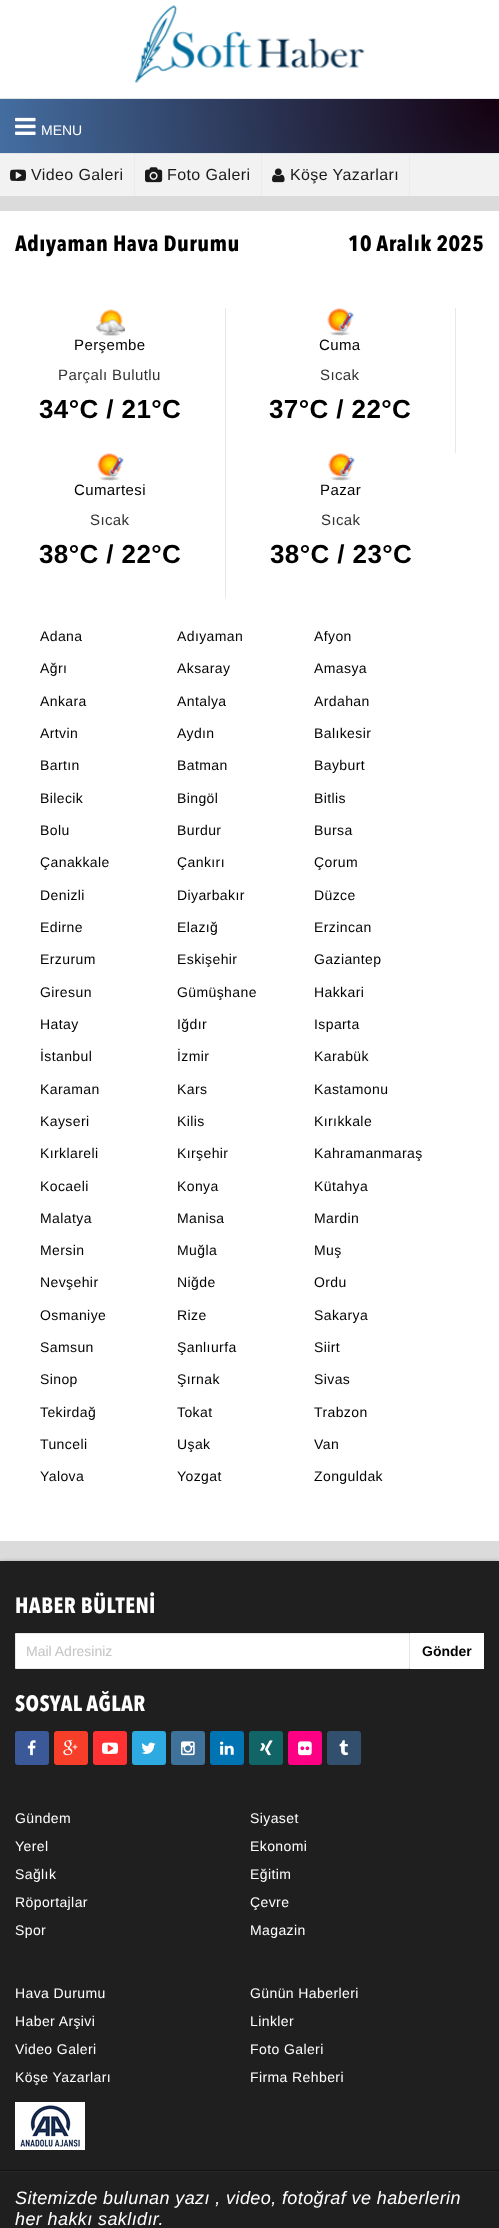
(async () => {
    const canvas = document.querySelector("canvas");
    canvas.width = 499;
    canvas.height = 2228;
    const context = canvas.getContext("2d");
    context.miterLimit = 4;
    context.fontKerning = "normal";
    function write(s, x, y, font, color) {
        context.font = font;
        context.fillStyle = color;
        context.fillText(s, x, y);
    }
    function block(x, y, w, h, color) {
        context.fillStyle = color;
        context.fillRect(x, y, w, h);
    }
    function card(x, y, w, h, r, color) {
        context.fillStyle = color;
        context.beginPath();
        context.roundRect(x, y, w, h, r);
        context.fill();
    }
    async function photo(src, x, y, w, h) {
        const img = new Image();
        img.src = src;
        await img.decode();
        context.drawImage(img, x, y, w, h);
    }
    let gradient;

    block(0, 0, 499, 2228, "rgb(219, 219, 219)");
    block(409, 196, 1, 1, "rgb(212, 212, 212)");
    block(261, 196, 1, 1, "rgb(212, 212, 212)");
    block(134, 196, 1, 1, "rgb(212, 212, 212)");
    block(0, 0, 499, 98, "rgb(255, 255, 255)");
    await photo("media/1.png", 135, 5, 230, 78);
    gradient = context.createRadialGradient(499, 99, 0, 499, 99, 502);
    gradient.addColorStop(0, "rgb(20, 0, 15)");
    gradient.addColorStop(1, "rgb(68, 110, 161)");
    context.fillStyle = gradient;
    context.fillRect(0, 99, 499, 54);
    block(0, 98, 499, 1, "rgb(226, 229, 231)");
    block(0, 154, 499, 42, "rgb(242, 242, 242)");
    block(409, 153, 1, 43, "rgb(235, 235, 235)");
    block(261, 153, 1, 43, "rgb(235, 235, 235)");
    block(134, 153, 1, 43, "rgb(235, 235, 235)");
    block(0, 153, 499, 1, "rgb(226, 229, 231)");
    await photo("media/2.png", 15, 117, 21, 18);
    write("MENU", 41, 135, "14px Liberation Sans", "rgb(255, 255, 255)");
    await photo("media/3.png", 10, 169, 16, 12);
    context.letterSpacing = "0.4px";
    write("Video Galeri", 31, 180, "16px Liberation Sans", "rgb(26, 26, 26)");
    await photo("media/4.png", 145, 167, 18, 16);
    write("Foto Galeri", 167, 180, "16px Liberation Sans", "rgb(26, 26, 26)");
    await photo("media/5.png", 272, 168, 13, 15);
    write("Köşe Yazarları", 290, 180, "16px Liberation Sans", "rgb(26, 26, 26)");
    block(0, 211, 499, 1330, "rgb(255, 255, 255)");
    write("Adıyaman Hava Durumu", 15, 251, "bold 22px Avenir Next", "rgb(0, 0, 0)");
    write("10 Aralık 2025", 348, 251, "bold 22px Avenir Next", "rgb(0, 0, 0)");
    block(225, 308, 1, 290, "rgb(232, 232, 232)");
    await photo("media/6.png", 96, 309, 29, 27);
    write("Perşembe", 74, 350, "15px Liberation Sans", "rgb(0, 0, 0)");
    write("Parçalı Bulutlu", 58, 380, "15px Liberation Sans", "rgb(51, 51, 51)");
    write("34°C / 21°C", 39, 418, "bold 26px Liberation Sans", "rgb(0, 0, 0)");
    block(455, 308, 1, 145, "rgb(232, 232, 232)");
    await photo("media/7.png", 327, 308, 27, 28);
    write("Cuma", 319, 350, "15px Liberation Sans", "rgb(0, 0, 0)");
    write("Sıcak", 320, 380, "15px Liberation Sans", "rgb(51, 51, 51)");
    write("37°C / 22°C", 269, 418, "bold 26px Liberation Sans", "rgb(0, 0, 0)");
    await photo("media/7.png", 97, 453, 27, 28);
    write("Cumartesi", 74, 495, "15px Liberation Sans", "rgb(0, 0, 0)");
    write("Sıcak", 90, 525, "15px Liberation Sans", "rgb(51, 51, 51)");
    write("38°C / 22°C", 39, 563, "bold 26px Liberation Sans", "rgb(0, 0, 0)");
    await photo("media/8.png", 328, 453, 27, 28);
    write("Pazar", 320, 495, "15px Liberation Sans", "rgb(0, 0, 0)");
    write("Sıcak", 321, 525, "15px Liberation Sans", "rgb(51, 51, 51)");
    write("38°C / 23°C", 270, 563, "bold 26px Liberation Sans", "rgb(0, 0, 0)");
    write("Adana", 40, 641, "14px Liberation Sans", "rgb(0, 0, 0)");
    write("Adıyaman", 177, 641, "14px Liberation Sans", "rgb(0, 0, 0)");
    write("Afyon", 314, 641, "14px Liberation Sans", "rgb(0, 0, 0)");
    write("Ağrı", 40, 673, "14px Liberation Sans", "rgb(0, 0, 0)");
    write("Aksaray", 177, 673, "14px Liberation Sans", "rgb(0, 0, 0)");
    write("Amasya", 314, 673, "14px Liberation Sans", "rgb(0, 0, 0)");
    write("Ankara", 40, 706, "14px Liberation Sans", "rgb(0, 0, 0)");
    write("Antalya", 177, 706, "14px Liberation Sans", "rgb(0, 0, 0)");
    write("Ardahan", 314, 706, "14px Liberation Sans", "rgb(0, 0, 0)");
    write("Artvin", 40, 738, "14px Liberation Sans", "rgb(0, 0, 0)");
    write("Aydın", 177, 738, "14px Liberation Sans", "rgb(0, 0, 0)");
    write("Balıkesir", 314, 738, "14px Liberation Sans", "rgb(0, 0, 0)");
    write("Bartın", 40, 770, "14px Liberation Sans", "rgb(0, 0, 0)");
    write("Batman", 177, 770, "14px Liberation Sans", "rgb(0, 0, 0)");
    write("Bayburt", 314, 770, "14px Liberation Sans", "rgb(0, 0, 0)");
    write("Bilecik", 40, 803, "14px Liberation Sans", "rgb(0, 0, 0)");
    write("Bingöl", 177, 803, "14px Liberation Sans", "rgb(0, 0, 0)");
    write("Bitlis", 314, 803, "14px Liberation Sans", "rgb(0, 0, 0)");
    write("Bolu", 40, 835, "14px Liberation Sans", "rgb(0, 0, 0)");
    write("Burdur", 177, 835, "14px Liberation Sans", "rgb(0, 0, 0)");
    write("Bursa", 314, 835, "14px Liberation Sans", "rgb(0, 0, 0)");
    write("Çanakkale", 40, 867, "14px Liberation Sans", "rgb(0, 0, 0)");
    write("Çankırı", 177, 867, "14px Liberation Sans", "rgb(0, 0, 0)");
    write("Çorum", 314, 867, "14px Liberation Sans", "rgb(0, 0, 0)");
    write("Denizli", 40, 900, "14px Liberation Sans", "rgb(0, 0, 0)");
    write("Diyarbakır", 177, 900, "14px Liberation Sans", "rgb(0, 0, 0)");
    write("Düzce", 314, 900, "14px Liberation Sans", "rgb(0, 0, 0)");
    write("Edirne", 40, 932, "14px Liberation Sans", "rgb(0, 0, 0)");
    write("Elazığ", 177, 932, "14px Liberation Sans", "rgb(0, 0, 0)");
    write("Erzincan", 314, 932, "14px Liberation Sans", "rgb(0, 0, 0)");
    write("Erzurum", 40, 964, "14px Liberation Sans", "rgb(0, 0, 0)");
    write("Eskişehir", 177, 964, "14px Liberation Sans", "rgb(0, 0, 0)");
    write("Gaziantep", 314, 964, "14px Liberation Sans", "rgb(0, 0, 0)");
    write("Giresun", 40, 997, "14px Liberation Sans", "rgb(0, 0, 0)");
    write("Gümüşhane", 177, 997, "14px Liberation Sans", "rgb(0, 0, 0)");
    write("Hakkari", 314, 997, "14px Liberation Sans", "rgb(0, 0, 0)");
    write("Hatay", 40, 1029, "14px Liberation Sans", "rgb(0, 0, 0)");
    write("Iğdır", 177, 1029, "14px Liberation Sans", "rgb(0, 0, 0)");
    write("Isparta", 314, 1029, "14px Liberation Sans", "rgb(0, 0, 0)");
    write("İstanbul", 40, 1061, "14px Liberation Sans", "rgb(0, 0, 0)");
    write("İzmir", 177, 1061, "14px Liberation Sans", "rgb(0, 0, 0)");
    write("Karabük", 314, 1061, "14px Liberation Sans", "rgb(0, 0, 0)");
    write("Karaman", 40, 1094, "14px Liberation Sans", "rgb(0, 0, 0)");
    write("Kars", 177, 1094, "14px Liberation Sans", "rgb(0, 0, 0)");
    write("Kastamonu", 314, 1094, "14px Liberation Sans", "rgb(0, 0, 0)");
    write("Kayseri", 40, 1126, "14px Liberation Sans", "rgb(0, 0, 0)");
    write("Kilis", 177, 1126, "14px Liberation Sans", "rgb(0, 0, 0)");
    write("Kırıkkale", 314, 1126, "14px Liberation Sans", "rgb(0, 0, 0)");
    write("Kırklareli", 40, 1158, "14px Liberation Sans", "rgb(0, 0, 0)");
    write("Kırşehir", 177, 1158, "14px Liberation Sans", "rgb(0, 0, 0)");
    write("Kahramanmaraş", 314, 1158, "14px Liberation Sans", "rgb(0, 0, 0)");
    write("Kocaeli", 40, 1191, "14px Liberation Sans", "rgb(0, 0, 0)");
    write("Konya", 177, 1191, "14px Liberation Sans", "rgb(0, 0, 0)");
    write("Kütahya", 314, 1191, "14px Liberation Sans", "rgb(0, 0, 0)");
    write("Malatya", 40, 1223, "14px Liberation Sans", "rgb(0, 0, 0)");
    write("Manisa", 177, 1223, "14px Liberation Sans", "rgb(0, 0, 0)");
    write("Mardin", 314, 1223, "14px Liberation Sans", "rgb(0, 0, 0)");
    write("Mersin", 40, 1255, "14px Liberation Sans", "rgb(0, 0, 0)");
    write("Muğla", 177, 1255, "14px Liberation Sans", "rgb(0, 0, 0)");
    write("Muş", 314, 1255, "14px Liberation Sans", "rgb(0, 0, 0)");
    write("Nevşehir", 40, 1287, "14px Liberation Sans", "rgb(0, 0, 0)");
    write("Niğde", 177, 1287, "14px Liberation Sans", "rgb(0, 0, 0)");
    write("Ordu", 314, 1287, "14px Liberation Sans", "rgb(0, 0, 0)");
    write("Osmaniye", 40, 1320, "14px Liberation Sans", "rgb(0, 0, 0)");
    write("Rize", 177, 1320, "14px Liberation Sans", "rgb(0, 0, 0)");
    write("Sakarya", 314, 1320, "14px Liberation Sans", "rgb(0, 0, 0)");
    write("Samsun", 40, 1352, "14px Liberation Sans", "rgb(0, 0, 0)");
    write("Şanlıurfa", 177, 1352, "14px Liberation Sans", "rgb(0, 0, 0)");
    write("Siirt", 314, 1352, "14px Liberation Sans", "rgb(0, 0, 0)");
    write("Sinop", 40, 1384, "14px Liberation Sans", "rgb(0, 0, 0)");
    write("Şırnak", 177, 1384, "14px Liberation Sans", "rgb(0, 0, 0)");
    write("Sivas", 314, 1384, "14px Liberation Sans", "rgb(0, 0, 0)");
    write("Tekirdağ", 40, 1417, "14px Liberation Sans", "rgb(0, 0, 0)");
    write("Tokat", 177, 1417, "14px Liberation Sans", "rgb(0, 0, 0)");
    write("Trabzon", 314, 1417, "14px Liberation Sans", "rgb(0, 0, 0)");
    write("Tunceli", 40, 1449, "14px Liberation Sans", "rgb(0, 0, 0)");
    write("Uşak", 177, 1449, "14px Liberation Sans", "rgb(0, 0, 0)");
    write("Van", 314, 1449, "14px Liberation Sans", "rgb(0, 0, 0)");
    write("Yalova", 40, 1481, "14px Liberation Sans", "rgb(0, 0, 0)");
    write("Yozgat", 177, 1481, "14px Liberation Sans", "rgb(0, 0, 0)");
    write("Zonguldak", 314, 1481, "14px Liberation Sans", "rgb(0, 0, 0)");
    context.fillStyle = "rgba(0, 0, 0, 0.28)";
    context.filter = "blur(2px)";
    context.beginPath();
    context.rect(0, 1563, 499, 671);
    context.fill();
    context.filter = "none";
    context.fillStyle = "rgba(0, 0, 0, 0.14)";
    context.filter = "blur(2px)";
    context.beginPath();
    context.rect(0, 1561, 499, 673);
    context.fill();
    context.filter = "none";
    block(0, 1561, 499, 667, "rgb(31, 31, 31)");
    write("HABER BÜLTENİ", 15, 1613, "bold 22px Avenir Next", "rgb(255, 255, 255)");
    context.beginPath();
    context.rect(15.5, 1633.5, 394, 35);
    context.fill();
    context.strokeStyle = "rgb(232, 232, 232)";
    context.stroke();
    context.letterSpacing = "0px";
    write("Mail Adresiniz", 26, 1656, "14px Liberation Sans", "rgb(196, 196, 196)");
    block(410, 1633, 74, 36, "rgb(255, 255, 255)");
    write("Gönder", 422, 1656, "bold 14px Liberation Sans", "rgb(0, 0, 0)");
    context.letterSpacing = "0.4px";
    write("SOSYAL AĞLAR", 15, 1711, "bold 22px Avenir Next", "rgb(255, 255, 255)");
    card(15, 1731, 34, 34, 3, "rgb(59, 89, 152)");
    await photo("media/9.png", 27, 1740, 9, 16);
    card(54, 1731, 34, 34, 3, "rgb(246, 62, 40)");
    await photo("media/10.png", 63, 1740, 15, 16);
    card(93, 1731, 34, 34, 3, "rgb(255, 49, 50)");
    await photo("media/11.png", 102, 1742, 16, 12);
    card(132, 1731, 34, 34, 3, "rgb(45, 170, 225)");
    await photo("media/12.png", 141, 1742, 15, 12);
    card(171, 1731, 34, 34, 3, "rgb(63, 114, 155)");
    await photo("media/13.png", 181, 1741, 14, 15);
    card(210, 1731, 34, 34, 3, "rgb(0, 115, 178)");
    await photo("media/14.png", 220, 1741, 14, 14);
    card(249, 1731, 34, 34, 3, "rgb(18, 101, 103)");
    await photo("media/15.png", 260, 1740, 13, 16);
    card(288, 1731, 34, 34, 3, "rgb(255, 0, 132)");
    await photo("media/16.png", 298, 1741, 14, 15);
    card(327, 1731, 34, 34, 3, "rgb(50, 80, 109)");
    await photo("media/17.png", 339, 1740, 10, 16);
    write("Gündem", 15, 1823, "14px Liberation Sans", "rgb(255, 255, 255)");
    write("Siyaset", 250, 1823, "14px Liberation Sans", "rgb(255, 255, 255)");
    write("Yerel", 15, 1851, "14px Liberation Sans", "rgb(255, 255, 255)");
    write("Ekonomi", 250, 1851, "14px Liberation Sans", "rgb(255, 255, 255)");
    write("Sağlık", 15, 1879, "14px Liberation Sans", "rgb(255, 255, 255)");
    write("Eğitim", 250, 1879, "14px Liberation Sans", "rgb(255, 255, 255)");
    write("Röportajlar", 15, 1907, "14px Liberation Sans", "rgb(255, 255, 255)");
    write("Çevre", 250, 1907, "14px Liberation Sans", "rgb(255, 255, 255)");
    write("Spor", 15, 1935, "14px Liberation Sans", "rgb(255, 255, 255)");
    write("Magazin", 250, 1935, "14px Liberation Sans", "rgb(255, 255, 255)");
    write("Hava Durumu", 15, 1998, "14px Liberation Sans", "rgb(255, 255, 255)");
    write("Günün Haberleri", 250, 1998, "14px Liberation Sans", "rgb(255, 255, 255)");
    write("Haber Arşivi", 15, 2026, "14px Liberation Sans", "rgb(255, 255, 255)");
    write("Linkler", 250, 2026, "14px Liberation Sans", "rgb(255, 255, 255)");
    write("Video Galeri", 15, 2054, "14px Liberation Sans", "rgb(255, 255, 255)");
    write("Foto Galeri", 250, 2054, "14px Liberation Sans", "rgb(255, 255, 255)");
    write("Köşe Yazarları", 15, 2082, "14px Liberation Sans", "rgb(255, 255, 255)");
    write("Firma Rehberi", 250, 2082, "14px Liberation Sans", "rgb(255, 255, 255)");
    await photo("media/18.png", 15, 2102, 70, 48);
    block(0, 2170, 499, 1, "rgb(16, 16, 16)");
    block(0, 2171, 499, 1, "rgb(40, 40, 40)");
    write("Sitemizde bulunan yazı , video, fotoğraf ve haberlerin", 15, 2204, "italic 18px Liberation Sans", "rgb(255, 255, 255)");
    write("her hakkı saklıdır.", 15, 2225, "italic 18px Liberation Sans", "rgb(255, 255, 255)");
})();
